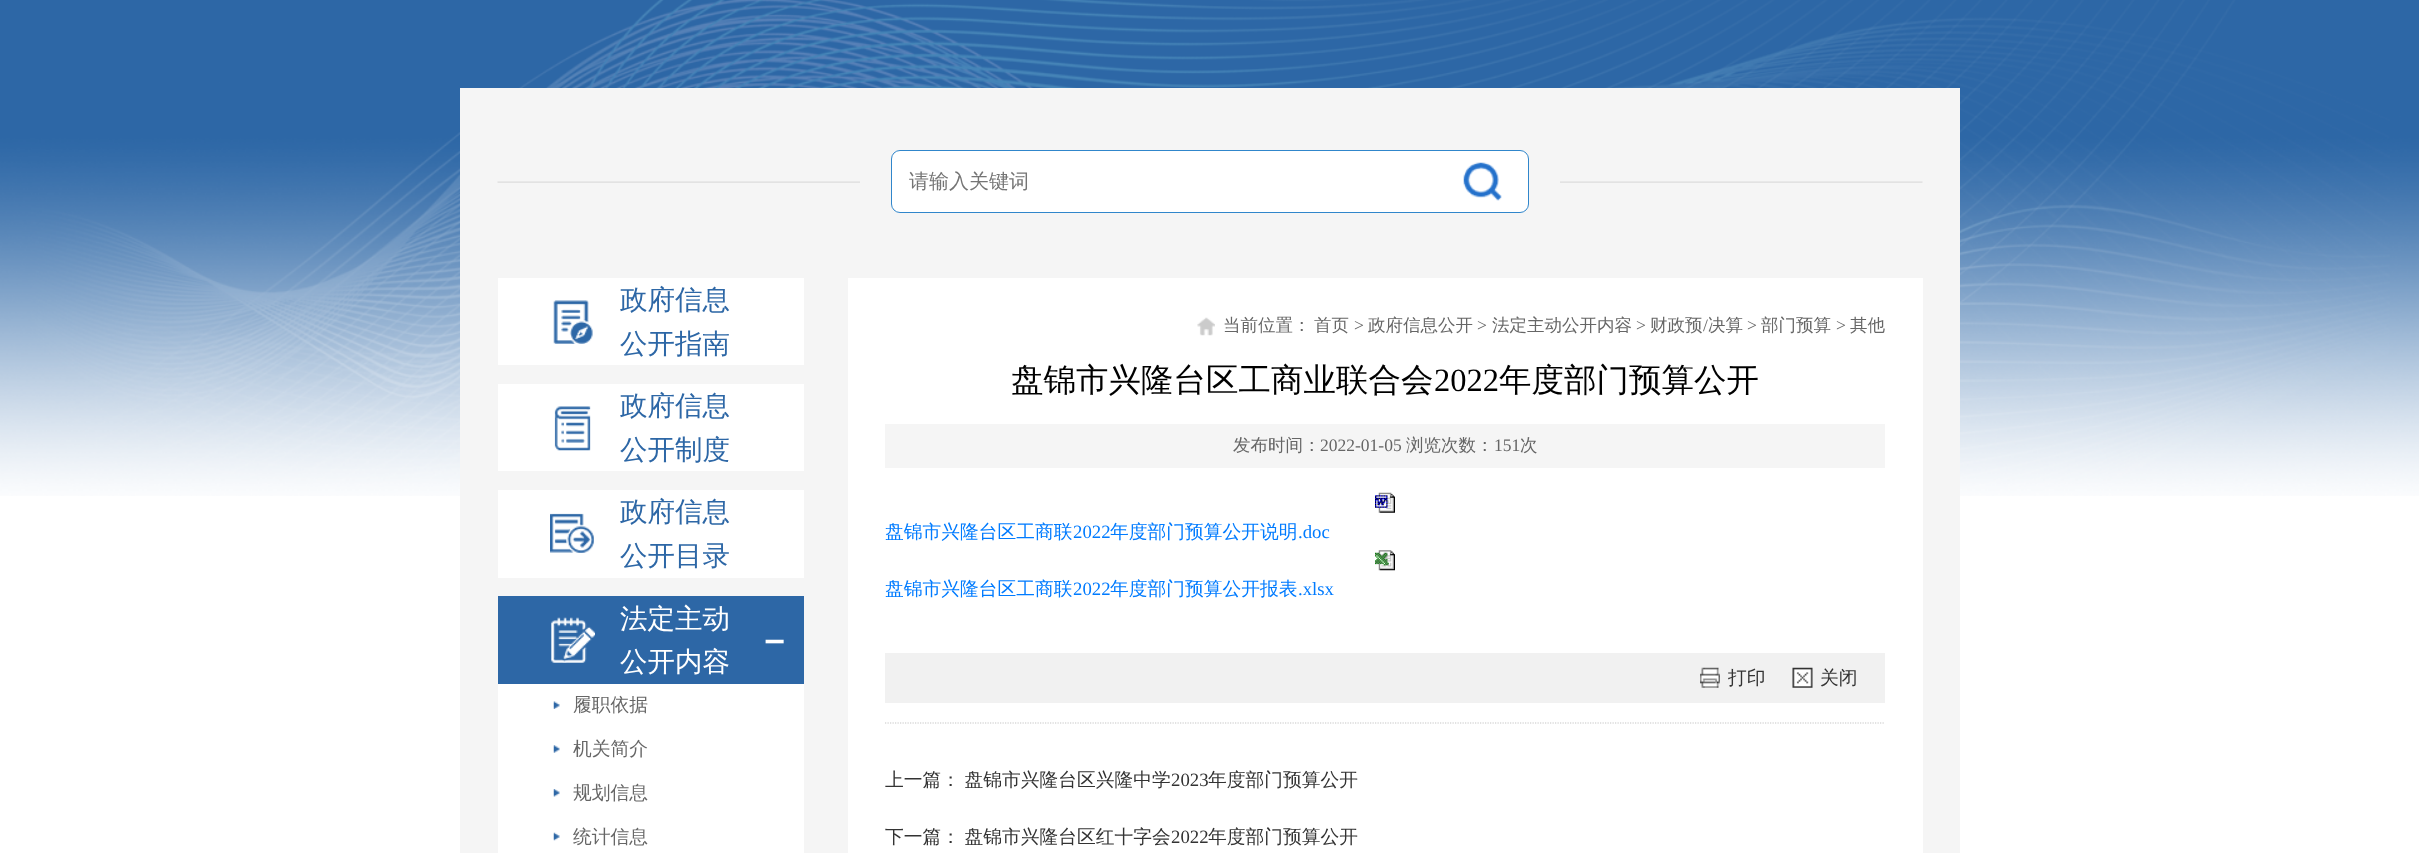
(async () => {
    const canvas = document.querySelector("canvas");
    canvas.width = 2419;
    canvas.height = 853;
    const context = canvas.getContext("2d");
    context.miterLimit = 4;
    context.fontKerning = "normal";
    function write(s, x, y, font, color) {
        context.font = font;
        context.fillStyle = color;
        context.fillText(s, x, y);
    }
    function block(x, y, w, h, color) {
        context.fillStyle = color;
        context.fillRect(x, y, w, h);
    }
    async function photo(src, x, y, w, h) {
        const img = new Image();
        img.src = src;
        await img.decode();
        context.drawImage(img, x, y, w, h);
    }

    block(0, 0, 2419, 853, "rgb(255, 255, 255)");
    await photo("media/1.png", 0, 0, 2419, 496);
    block(460, 88, 1500, 765, "rgb(245, 245, 245)");
    await photo("media/2.png", 497, 181, 363, 2);
    context.fillStyle = "rgb(255, 255, 255)";
    context.beginPath();
    context.roundRect(891.5, 150.5, 637, 62, 8.5);
    context.fill();
    context.strokeStyle = "rgb(48, 134, 203)";
    context.stroke();
    write("请输入关键词", 909, 188, "500 20px WenQuanYi Zen Hei", "rgb(117, 117, 117)");
    await photo("media/3.png", 1463, 162, 39, 39);
    await photo("media/4.png", 1560, 181, 363, 2);
    block(498, 278, 306, 87, "rgb(255, 255, 255)");
    await photo("media/5.png", 553, 300, 40, 44);
    write("政府信息", 620, 309, "500 27.5px WenQuanYi Zen Hei", "rgb(45, 103, 166)");
    write("公开指南", 620, 353, "500 27.5px WenQuanYi Zen Hei", "rgb(45, 103, 166)");
    block(498, 384, 306, 87, "rgb(255, 255, 255)");
    await photo("media/6.png", 554, 406, 37, 45);
    write("政府信息", 620, 415, "500 27.5px WenQuanYi Zen Hei", "rgb(45, 103, 166)");
    write("公开制度", 620, 459, "500 27.5px WenQuanYi Zen Hei", "rgb(45, 103, 166)");
    block(498, 490, 306, 88, "rgb(255, 255, 255)");
    await photo("media/7.png", 550, 513, 44, 40);
    write("政府信息", 620, 521, "500 27.5px WenQuanYi Zen Hei", "rgb(45, 103, 166)");
    write("公开目录", 620, 565, "500 27.5px WenQuanYi Zen Hei", "rgb(45, 103, 166)");
    block(498, 596, 306, 88, "rgb(45, 103, 166)");
    await photo("media/8.png", 551, 617, 44, 46);
    write("法定主动", 620, 628, "500 27.5px WenQuanYi Zen Hei", "rgb(255, 255, 255)");
    write("公开内容", 620, 671, "500 27.5px WenQuanYi Zen Hei", "rgb(255, 255, 255)");
    write("－", 755, 653, "bold 38px WenQuanYi Zen Hei", "rgb(255, 255, 255)");
    block(498, 684, 306, 169, "rgb(255, 255, 255)");
    await photo("media/9.png", 553, 701, 7, 8);
    write("履职依据", 573, 711, "500 18.75px WenQuanYi Zen Hei", "rgb(102, 102, 102)");
    await photo("media/10.png", 553, 745, 7, 8);
    write("机关简介", 573, 755, "500 18.75px WenQuanYi Zen Hei", "rgb(102, 102, 102)");
    await photo("media/11.png", 553, 789, 7, 8);
    write("规划信息", 573, 799, "500 18.75px WenQuanYi Zen Hei", "rgb(102, 102, 102)");
    await photo("media/12.png", 553, 832, 7, 9);
    write("统计信息", 573, 843, "500 18.75px WenQuanYi Zen Hei", "rgb(102, 102, 102)");
    block(848, 278, 1075, 575, "rgb(255, 255, 255)");
    await photo("media/13.png", 1197, 317, 18, 19);
    write("当前位置：", 1223, 331, "500 17.5px WenQuanYi Zen Hei", "rgb(102, 102, 102)");
    write("首页", 1314, 331, "500 17.5px WenQuanYi Zen Hei", "rgb(102, 102, 102)");
    write(">", 1354, 331, "17.5px Liberation Serif", "rgb(102, 102, 102)");
    write("政府信息公开", 1368, 331, "500 17.5px WenQuanYi Zen Hei", "rgb(102, 102, 102)");
    write(">", 1477, 331, "17.5px Liberation Serif", "rgb(102, 102, 102)");
    write("法定主动公开内容", 1492, 331, "500 17.5px WenQuanYi Zen Hei", "rgb(102, 102, 102)");
    write(">", 1636, 331, "17.5px Liberation Serif", "rgb(102, 102, 102)");
    write("财政预", 1650, 331, "500 17.5px WenQuanYi Zen Hei", "rgb(102, 102, 102)");
    write("/", 1703, 331, "17.5px Liberation Serif", "rgb(102, 102, 102)");
    write("决算", 1708, 331, "500 17.5px WenQuanYi Zen Hei", "rgb(102, 102, 102)");
    write(">", 1747, 331, "17.5px Liberation Serif", "rgb(102, 102, 102)");
    write("部门预算", 1761, 331, "500 17.5px WenQuanYi Zen Hei", "rgb(102, 102, 102)");
    write(">", 1836, 331, "17.5px Liberation Serif", "rgb(102, 102, 102)");
    write("其他", 1850, 331, "500 17.5px WenQuanYi Zen Hei", "rgb(102, 102, 102)");
    write("盘锦市兴隆台区工商业联合会", 1011, 391, "500 32.5px WenQuanYi Zen Hei", "rgb(0, 0, 0)");
    write("2022", 1434, 391, "32.5px Liberation Serif", "rgb(0, 0, 0)");
    write("年度部门预算公开", 1499, 391, "500 32.5px WenQuanYi Zen Hei", "rgb(0, 0, 0)");
    block(885, 424, 1000, 44, "rgb(245, 245, 245)");
    write("发布时间：", 1233, 451, "500 17.5px WenQuanYi Zen Hei", "rgb(102, 102, 102)");
    write("2022-01-05", 1320, 451, "17.5px Liberation Serif", "rgb(102, 102, 102)");
    write("浏览次数：", 1406, 451, "500 17.5px WenQuanYi Zen Hei", "rgb(102, 102, 102)");
    write("151", 1494, 451, "17.5px Liberation Serif", "rgb(102, 102, 102)");
    write("次", 1520, 451, "500 17.5px WenQuanYi Zen Hei", "rgb(102, 102, 102)");
    await photo("media/14.png", 1375, 492, 20, 21);
    write("盘锦市兴隆台区工商联", 885, 538, "500 18.75px WenQuanYi Zen Hei", "rgb(0, 123, 255)");
    write("2022", 1073, 538, "18.75px Liberation Serif", "rgb(0, 123, 255)");
    write("年度部门预算公开说明", 1110, 538, "500 18.75px WenQuanYi Zen Hei", "rgb(0, 123, 255)");
    write(".doc", 1298, 538, "18.75px Liberation Serif", "rgb(0, 123, 255)");
    await photo("media/15.png", 1375, 550, 20, 21);
    write("盘锦市兴隆台区工商联", 885, 595, "500 18.75px WenQuanYi Zen Hei", "rgb(0, 123, 255)");
    write("2022", 1073, 595, "18.75px Liberation Serif", "rgb(0, 123, 255)");
    write("年度部门预算公开报表", 1110, 595, "500 18.75px WenQuanYi Zen Hei", "rgb(0, 123, 255)");
    write(".xlsx", 1298, 595, "18.75px Liberation Serif", "rgb(0, 123, 255)");
    block(885, 653, 1000, 50, "rgb(241, 241, 241)");
    await photo("media/16.png", 1700, 667, 20, 21);
    write("打印", 1728, 684, "500 18.75px WenQuanYi Zen Hei", "rgb(51, 51, 51)");
    await photo("media/17.png", 1792, 667, 21, 21);
    write("关闭", 1820, 684, "500 18.75px WenQuanYi Zen Hei", "rgb(51, 51, 51)");
    context.beginPath();
    context.moveTo(885, 723);
    context.lineTo(1885, 723);
    context.strokeStyle = "rgb(197, 197, 197)";
    context.lineWidth = 1.2;
    context.setLineDash([1.25, 1.25]);
    context.stroke();
    context.wordSpacing = "-1px";
    write("上一篇： 盘锦市兴隆台区兴隆中学", 885, 786, "500 18.75px WenQuanYi Zen Hei", "rgb(51, 51, 51)");
    context.wordSpacing = "0px";
    write("2023", 1171, 786, "18.75px Liberation Serif", "rgb(51, 51, 51)");
    write("年度部门预算公开", 1208, 786, "500 18.75px WenQuanYi Zen Hei", "rgb(51, 51, 51)");
    context.wordSpacing = "-1px";
    write("下一篇： 盘锦市兴隆台区红十字会", 885, 843, "500 18.75px WenQuanYi Zen Hei", "rgb(51, 51, 51)");
    context.wordSpacing = "0px";
    write("2022", 1171, 843, "18.75px Liberation Serif", "rgb(51, 51, 51)");
    write("年度部门预算公开", 1208, 843, "500 18.75px WenQuanYi Zen Hei", "rgb(51, 51, 51)");
})();
